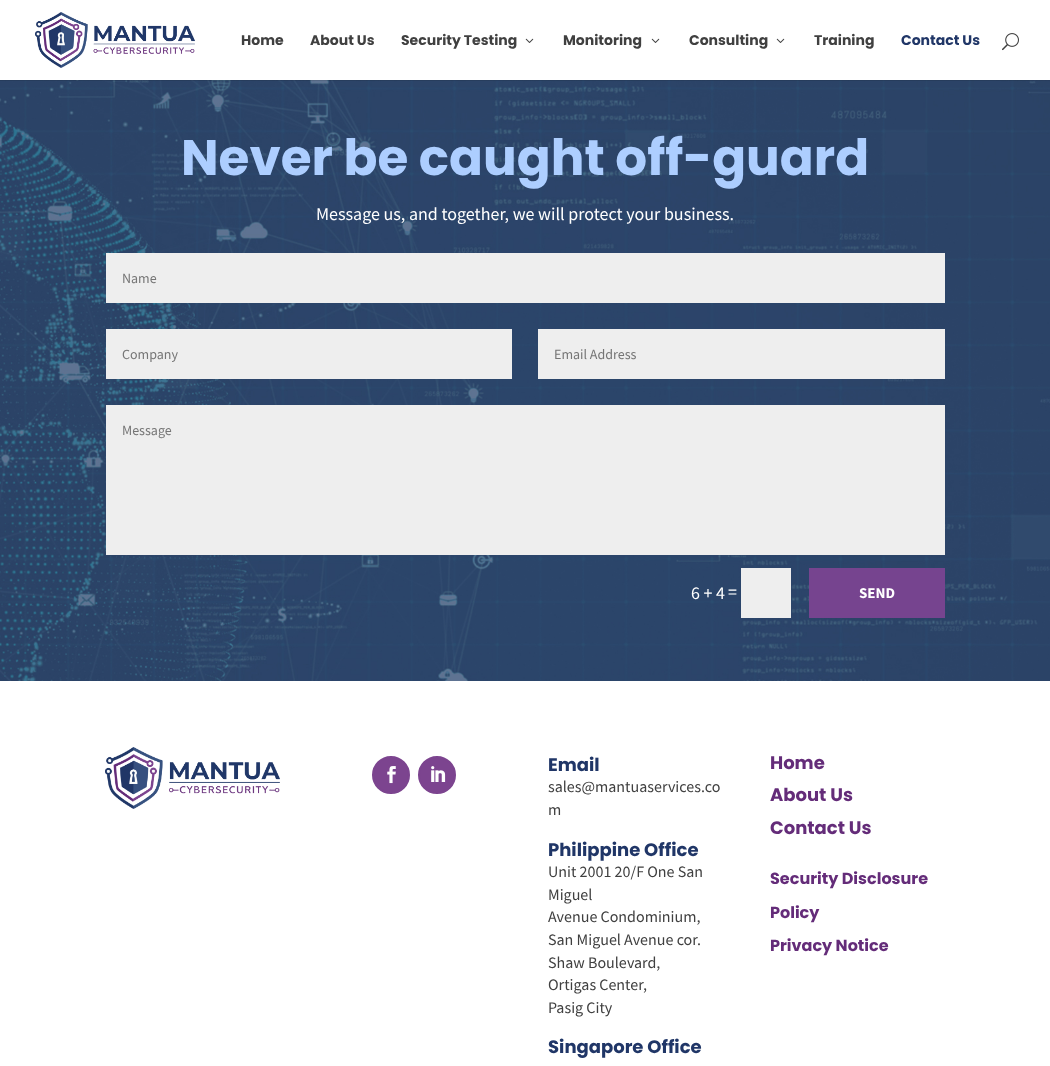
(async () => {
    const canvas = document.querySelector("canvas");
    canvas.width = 1050;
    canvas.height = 1066;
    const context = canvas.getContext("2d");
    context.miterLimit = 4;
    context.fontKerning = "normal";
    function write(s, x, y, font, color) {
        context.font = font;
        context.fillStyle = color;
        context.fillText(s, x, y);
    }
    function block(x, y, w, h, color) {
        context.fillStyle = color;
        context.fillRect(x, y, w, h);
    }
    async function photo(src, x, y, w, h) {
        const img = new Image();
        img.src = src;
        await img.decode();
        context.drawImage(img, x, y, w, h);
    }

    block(0, 0, 1050, 1066, "rgb(255, 255, 255)");
    await photo("media/4.png", 0, 80, 1050, 601);
    block(0, 80, 1050, 1, "rgba(0, 0, 0, 0.1)");
    await photo("media/1.png", 35, 12, 160, 56);
    write("Home", 241, 45, "bold 14px Poppins", "rgb(64, 64, 64)");
    write("About Us", 310, 45, "bold 14px Poppins", "rgb(64, 64, 64)");
    write("Security Testing", 401, 45, "bold 14px Poppins", "rgb(64, 64, 64)");
    await photo("media/2.png", 525, 38, 9, 5);
    write("Monitoring", 563, 45, "bold 14px Poppins", "rgb(64, 64, 64)");
    await photo("media/2.png", 651, 38, 9, 5);
    write("Consulting", 689, 45, "bold 14px Poppins", "rgb(64, 64, 64)");
    await photo("media/2.png", 776, 38, 9, 5);
    write("Training", 814, 45, "bold 14px Poppins", "rgb(64, 64, 64)");
    write("Contact Us", 901, 45, "bold 14px Poppins", "rgb(32, 54, 103)");
    await photo("media/3.png", 1002, 33, 17, 18);
    write("Never be caught off-guard", 181, 175, "bold 50px Poppins", "rgb(173, 206, 255)");
    write("Message us, and together, we will protect your business.", 316, 220, "18px Source Sans Pro", "rgb(255, 255, 255)");
    block(106, 253, 839, 50, "rgb(238, 238, 238)");
    write("Name", 122, 283, "14px Source Sans Pro", "rgb(117, 117, 117)");
    block(106, 329, 406, 50, "rgb(238, 238, 238)");
    write("Company", 122, 359, "14px Source Sans Pro", "rgb(117, 117, 117)");
    block(538, 329, 407, 50, "rgb(238, 238, 238)");
    write("Email Address", 554, 359, "14px Source Sans Pro", "rgb(117, 117, 117)");
    block(106, 405, 839, 150, "rgb(238, 238, 238)");
    write("Message", 122, 435, "14px Source Sans Pro", "rgb(117, 117, 117)");
    write("6 + 4", 691, 599, "18px Source Sans Pro", "rgb(255, 255, 255)");
    write("=", 728, 598, "18px Source Sans Pro", "rgb(255, 255, 255)");
    block(741, 568, 50, 50, "rgb(238, 238, 238)");
    block(809, 568, 136, 50, "rgb(118, 68, 143)");
    write("SEND", 859, 598, "bold 15px Source Sans Pro", "rgb(255, 255, 255)");
    await photo("media/5.png", 105, 747, 175, 62);
    context.fillStyle = "rgb(124, 68, 143)";
    context.beginPath();
    context.arc(391, 775, 18, 0, Math.PI * 2);
    context.fill();
    context.strokeStyle = "rgb(124, 68, 143)";
    context.lineWidth = 2;
    context.stroke();
    await photo("media/6.png", 387, 766, 9, 18);
    context.beginPath();
    context.arc(437, 775, 18, 0, Math.PI * 2);
    context.fill();
    context.stroke();
    await photo("media/7.png", 431, 766, 15, 16);
    write("Email", 548, 771, "bold 18px Poppins", "rgb(32, 54, 103)");
    write("sales@mantuaservices.co", 548, 792, "16px Source Sans Pro", "rgb(64, 64, 64)");
    write("m", 548, 815, "16px Source Sans Pro", "rgb(64, 64, 64)");
    write("Philippine Office", 548, 856, "bold 18px Poppins", "rgb(32, 54, 103)");
    write("Unit 2001 20/F One San", 548, 877, "16px Source Sans Pro", "rgb(64, 64, 64)");
    write("Miguel", 548, 900, "16px Source Sans Pro", "rgb(64, 64, 64)");
    write("Avenue Condominium,", 548, 922, "16px Source Sans Pro", "rgb(64, 64, 64)");
    write("San Miguel Avenue cor.", 548, 945, "16px Source Sans Pro", "rgb(64, 64, 64)");
    write("Shaw Boulevard,", 548, 968, "16px Source Sans Pro", "rgb(64, 64, 64)");
    write("Ortigas Center,", 548, 990, "16px Source Sans Pro", "rgb(64, 64, 64)");
    write("Pasig City", 548, 1013, "16px Source Sans Pro", "rgb(64, 64, 64)");
    write("Singapore Office", 548, 1053, "bold 18px Poppins", "rgb(32, 54, 103)");
    write("Home", 770, 769, "bold 18px Poppins", "rgb(100, 44, 121)");
    write("About Us", 770, 801, "bold 18px Poppins", "rgb(100, 44, 121)");
    write("Contact Us", 770, 834, "bold 18px Poppins", "rgb(100, 44, 121)");
    write("Security Disclosure", 770, 884, "bold 16px Poppins", "rgb(100, 44, 121)");
    write("Policy", 770, 918, "bold 16px Poppins", "rgb(100, 44, 121)");
    write("Privacy Notice", 770, 951, "bold 16px Poppins", "rgb(100, 44, 121)");
})();
